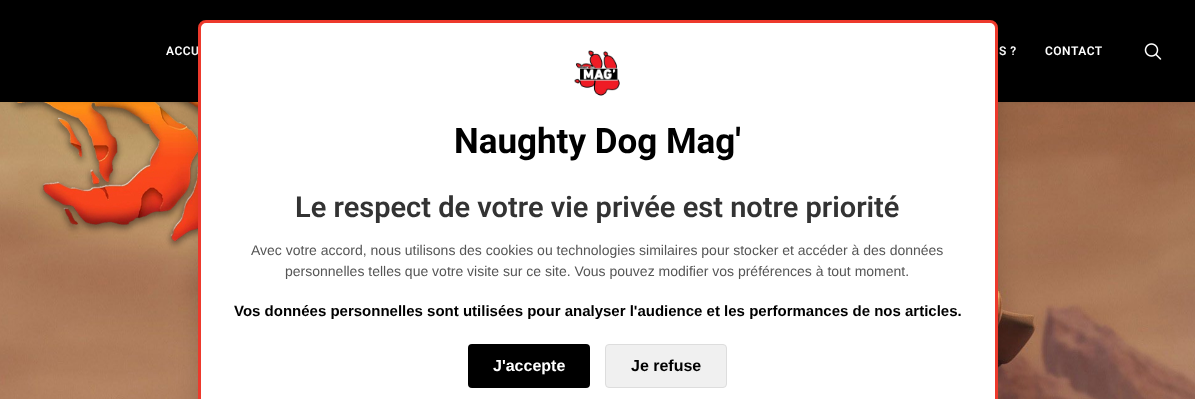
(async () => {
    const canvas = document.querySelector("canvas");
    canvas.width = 1195;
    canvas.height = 399;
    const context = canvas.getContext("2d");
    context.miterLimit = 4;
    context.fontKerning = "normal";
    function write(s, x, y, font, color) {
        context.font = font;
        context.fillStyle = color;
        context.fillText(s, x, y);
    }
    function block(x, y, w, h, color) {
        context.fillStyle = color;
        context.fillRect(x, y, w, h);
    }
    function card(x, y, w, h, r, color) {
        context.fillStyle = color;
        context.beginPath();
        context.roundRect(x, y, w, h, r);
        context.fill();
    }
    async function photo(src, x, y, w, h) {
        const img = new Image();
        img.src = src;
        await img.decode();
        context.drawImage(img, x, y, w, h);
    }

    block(0, 0, 1195, 399, "rgb(255, 255, 255)");
    await photo("media/2.png", 0, 102, 1195, 297);
    context.fillStyle = "rgba(0, 0, 0, 0.6)";
    context.filter = "blur(5px)";
    context.beginPath();
    context.rect(8, 14, 1180, 82);
    context.fill();
    context.filter = "none";
    block(0, 0, 1195, 102, "rgb(0, 0, 0)");
    context.letterSpacing = "0.5px";
    write("ACCU", 166, 55, "600 12px Roboto", "rgb(255, 255, 255)");
    write("S ?", 999, 55, "600 12px Roboto", "rgb(255, 255, 255)");
    write("CONTACT", 1045, 55, "600 12px Roboto", "rgb(255, 255, 255)");
    await photo("media/1.png", 1144, 43, 18, 17);
    context.fillStyle = "rgba(0, 0, 0, 0.15)";
    context.filter = "blur(10px)";
    context.beginPath();
    context.roundRect(198, 24, 800, 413, 8);
    context.fill();
    context.filter = "none";
    context.fillStyle = "rgb(255, 255, 255)";
    context.beginPath();
    context.roundRect(199.5, 21.5, 797, 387, 6.5);
    context.fill();
    context.strokeStyle = "rgb(237, 57, 44)";
    context.lineWidth = 3;
    context.stroke();
    await photo("media/3.png", 574, 50, 46, 46);
    context.letterSpacing = "0px";
    write("Naughty Dog Mag'", 454, 153, "bold 35px Roboto", "rgb(0, 0, 0)");
    write("Le respect de votre vie privée est notre priorité", 295, 217, "600 29px Roboto", "rgb(51, 51, 51)");
    write("Avec votre accord, nous utilisons des cookies ou technologies similaires pour stocker et accéder à des données", 251, 255, "14px Liberation Sans", "rgb(85, 85, 85)");
    write("personnelles telles que votre visite sur ce site. Vous pouvez modifier vos préférences à tout moment.", 285, 276, "14px Liberation Sans", "rgb(85, 85, 85)");
    write("Vos données personnelles sont utilisées pour analyser l'audience et les performances de nos articles.", 234, 316, "bold 15px Liberation Sans", "rgb(0, 0, 0)");
    card(468, 344, 122, 44, 4, "rgb(0, 0, 0)");
    write("J'accepte", 493, 371, "bold 16px Liberation Sans", "rgb(255, 255, 255)");
    context.fillStyle = "rgb(240, 240, 240)";
    context.beginPath();
    context.roundRect(605.5, 344.5, 121, 43, 3.5);
    context.fill();
    context.strokeStyle = "rgb(221, 221, 221)";
    context.lineWidth = 1;
    context.stroke();
    write("Je refuse", 631, 371, "bold 16px Liberation Sans", "rgb(0, 0, 0)");
})();
